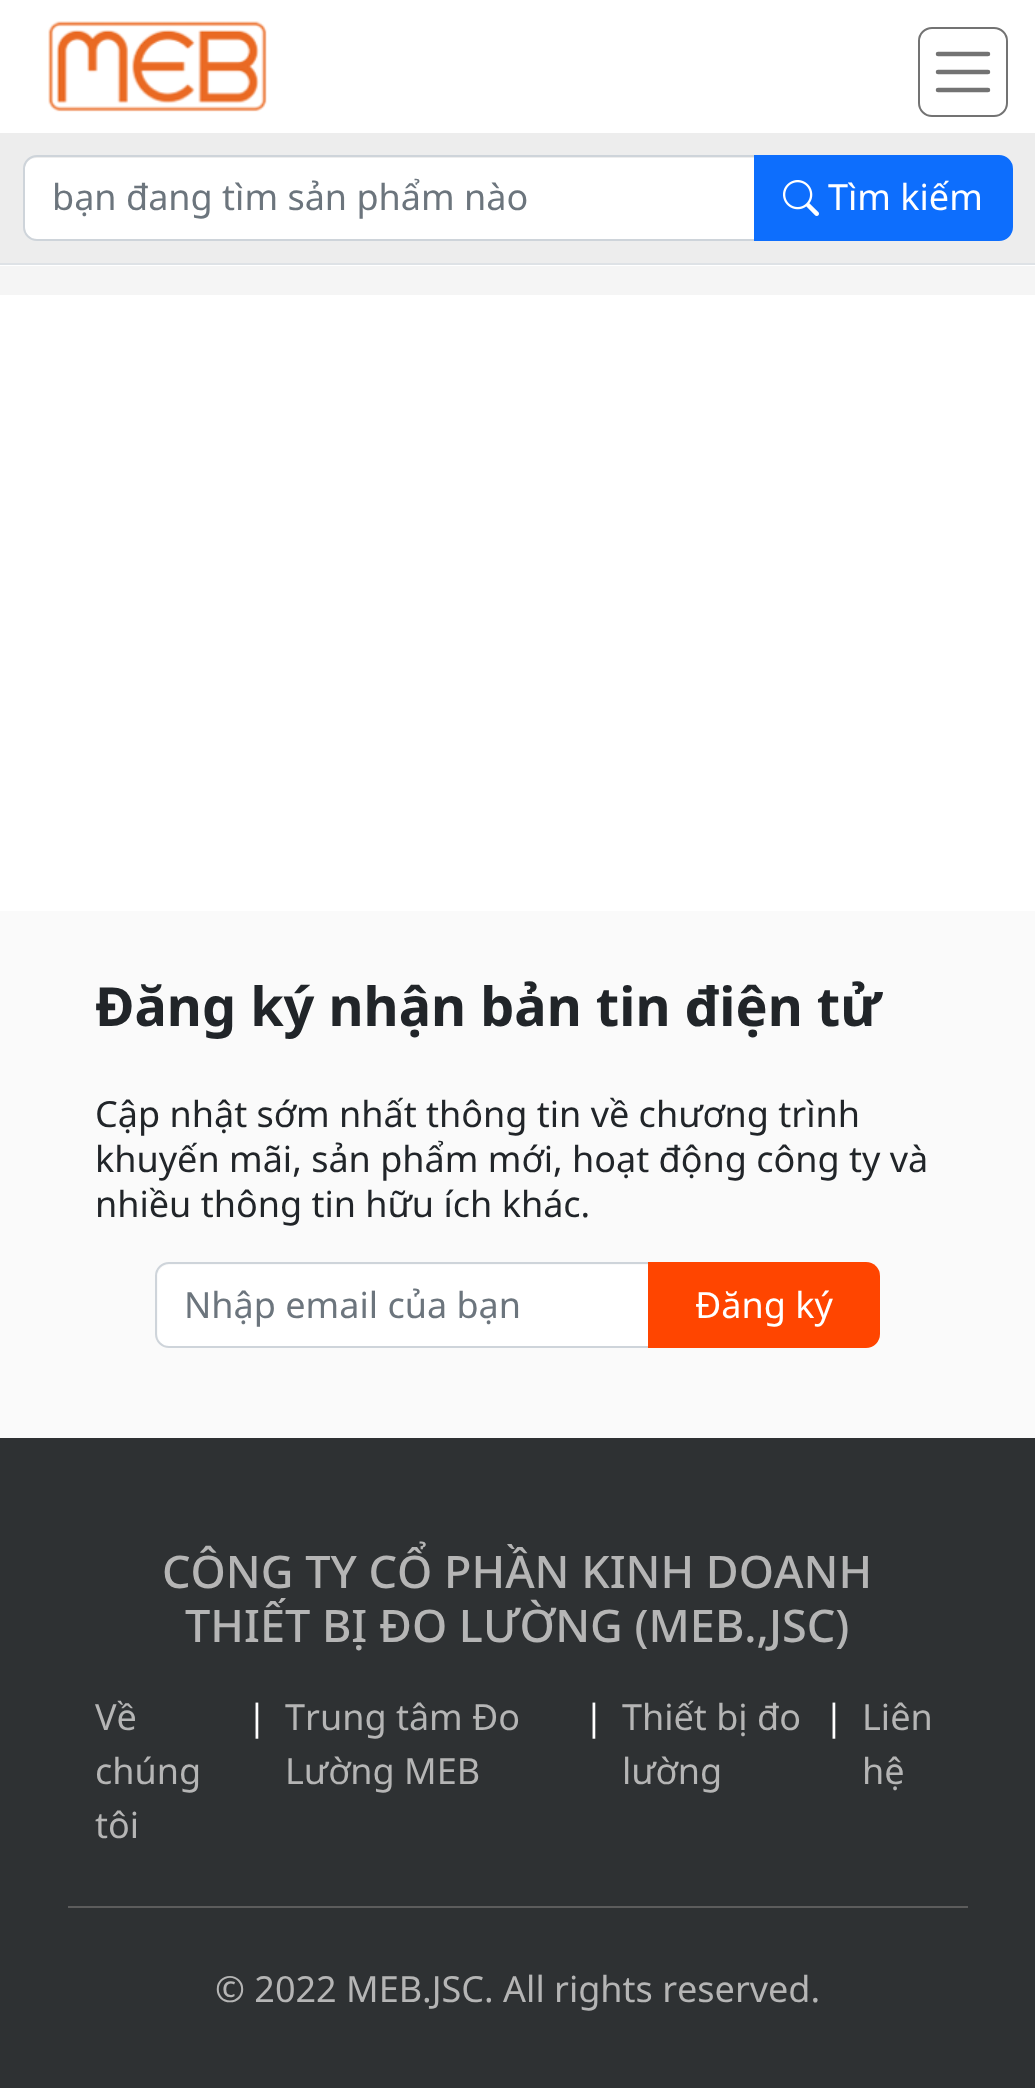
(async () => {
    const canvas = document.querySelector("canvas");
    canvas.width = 1035;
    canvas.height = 2088;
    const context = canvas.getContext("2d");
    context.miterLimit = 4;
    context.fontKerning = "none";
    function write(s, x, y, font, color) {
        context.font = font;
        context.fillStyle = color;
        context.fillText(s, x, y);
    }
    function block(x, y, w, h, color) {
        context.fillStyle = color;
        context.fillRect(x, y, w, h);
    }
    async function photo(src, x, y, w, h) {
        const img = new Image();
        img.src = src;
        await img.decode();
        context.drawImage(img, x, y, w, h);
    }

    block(0, 0, 1035, 2088, "rgb(255, 255, 255)");
    block(0, 263, 1035, 2, "rgb(222, 226, 230)");
    await photo("media/1.png", 48, 21, 219, 91);
    context.beginPath();
    context.roundRect(919, 28, 88, 88, 13);
    context.strokeStyle = "rgb(115, 115, 115)";
    context.lineWidth = 2;
    context.stroke();
    context.beginPath();
    context.moveTo(938, 54);
    context.lineTo(988, 54);
    context.moveTo(938, 72);
    context.lineTo(988, 72);
    context.moveTo(938, 90);
    context.lineTo(988, 90);
    context.lineWidth = 4.5;
    context.lineCap = "round";
    context.stroke();
    block(0, 133, 1035, 130, "rgb(237, 237, 237)");
    context.fillStyle = "rgb(255, 255, 255)";
    context.beginPath();
    context.roundRect(25, 158, 729, 81, [11, 0, 0, 11]);
    context.fill();
    context.beginPath();
    context.roundRect(24, 156, 731, 84, [13, 0, 0, 13]);
    context.strokeStyle = "rgb(206, 212, 218)";
    context.lineWidth = 2;
    context.stroke();
    write("bạn đang tìm sản phẩm nào", 52, 210, "36px Noto Sans", "rgb(108, 117, 125)");
    context.fillStyle = "rgb(13, 110, 253)";
    context.beginPath();
    context.roundRect(755, 156, 257, 84, [0, 13, 13, 0]);
    context.fill();
    context.strokeStyle = "rgb(13, 110, 253)";
    context.stroke();
    await photo("media/2.png", 783, 180, 36, 36);
    write("Tìm kiếm", 828, 210, "36px Noto Sans", "rgb(255, 255, 255)");
    block(0, 266, 1035, 29, "rgb(245, 245, 245)");
    block(0, 911, 1035, 527, "rgb(250, 250, 250)");
    write("Đăng ký nhận bản tin điện tử", 95, 1026, "bold 54px Noto Sans", "rgb(33, 37, 41)");
    write("Cập nhật sớm nhất thông tin về chương trình", 95, 1127, "36px Noto Sans", "rgb(33, 37, 41)");
    write("khuyến mãi, sản phẩm mới, hoạt động công ty và", 95, 1172, "36px Noto Sans", "rgb(33, 37, 41)");
    write("nhiều thông tin hữu ích khác.", 95, 1217, "36px Noto Sans", "rgb(33, 37, 41)");
    context.fillStyle = "rgb(255, 255, 255)";
    context.beginPath();
    context.roundRect(158, 1265, 490, 81, [11, 0, 0, 11]);
    context.fill();
    context.beginPath();
    context.roundRect(156, 1263, 493, 84, [13, 0, 0, 13]);
    context.strokeStyle = "rgb(206, 212, 218)";
    context.stroke();
    write("Nhập email của bạn", 184, 1318, "36px Noto Sans", "rgb(108, 117, 125)");
    context.fillStyle = "rgb(255, 69, 0)";
    context.beginPath();
    context.roundRect(648, 1262, 232, 86, [0, 14, 14, 0]);
    context.fill();
    write("Đăng ký", 695, 1318, "36px Noto Sans", "rgb(255, 255, 255)");
    block(0, 1438, 1035, 650, "rgb(46, 49, 51)");
    write("CÔNG TY CỔ PHẦN KINH DOANH", 162, 1588, "500 45px Noto Sans", "rgb(181, 181, 181)");
    write("THIẾT BỊ ĐO LƯỜNG (MEB.,JSC)", 185, 1642, "500 45px Noto Sans", "rgb(181, 181, 181)");
    write("Về", 95, 1730, "36px Noto Sans", "rgb(181, 181, 181)");
    write("chúng", 95, 1784, "36px Noto Sans", "rgb(181, 181, 181)");
    write("tôi", 95, 1838, "36px Noto Sans", "rgb(181, 181, 181)");
    write("|", 247, 1730, "36px Noto Sans", "rgb(255, 255, 255)");
    write("Trung tâm Đo", 285, 1730, "36px Noto Sans", "rgb(181, 181, 181)");
    write("Lường MEB", 285, 1784, "36px Noto Sans", "rgb(181, 181, 181)");
    write("|", 584, 1730, "36px Noto Sans", "rgb(255, 255, 255)");
    write("Thiết bị đo", 622, 1730, "36px Noto Sans", "rgb(181, 181, 181)");
    write("lường", 622, 1784, "36px Noto Sans", "rgb(181, 181, 181)");
    write("|", 824, 1730, "36px Noto Sans", "rgb(255, 255, 255)");
    write("Liên", 862, 1730, "36px Noto Sans", "rgb(181, 181, 181)");
    write("hệ", 862, 1784, "36px Noto Sans", "rgb(181, 181, 181)");
    block(68, 1906, 900, 2, "rgb(92, 92, 92)");
    write("© 2022 MEB.JSC. All rights reserved.", 215, 2002, "36px Noto Sans", "rgb(181, 181, 181)");
})();
